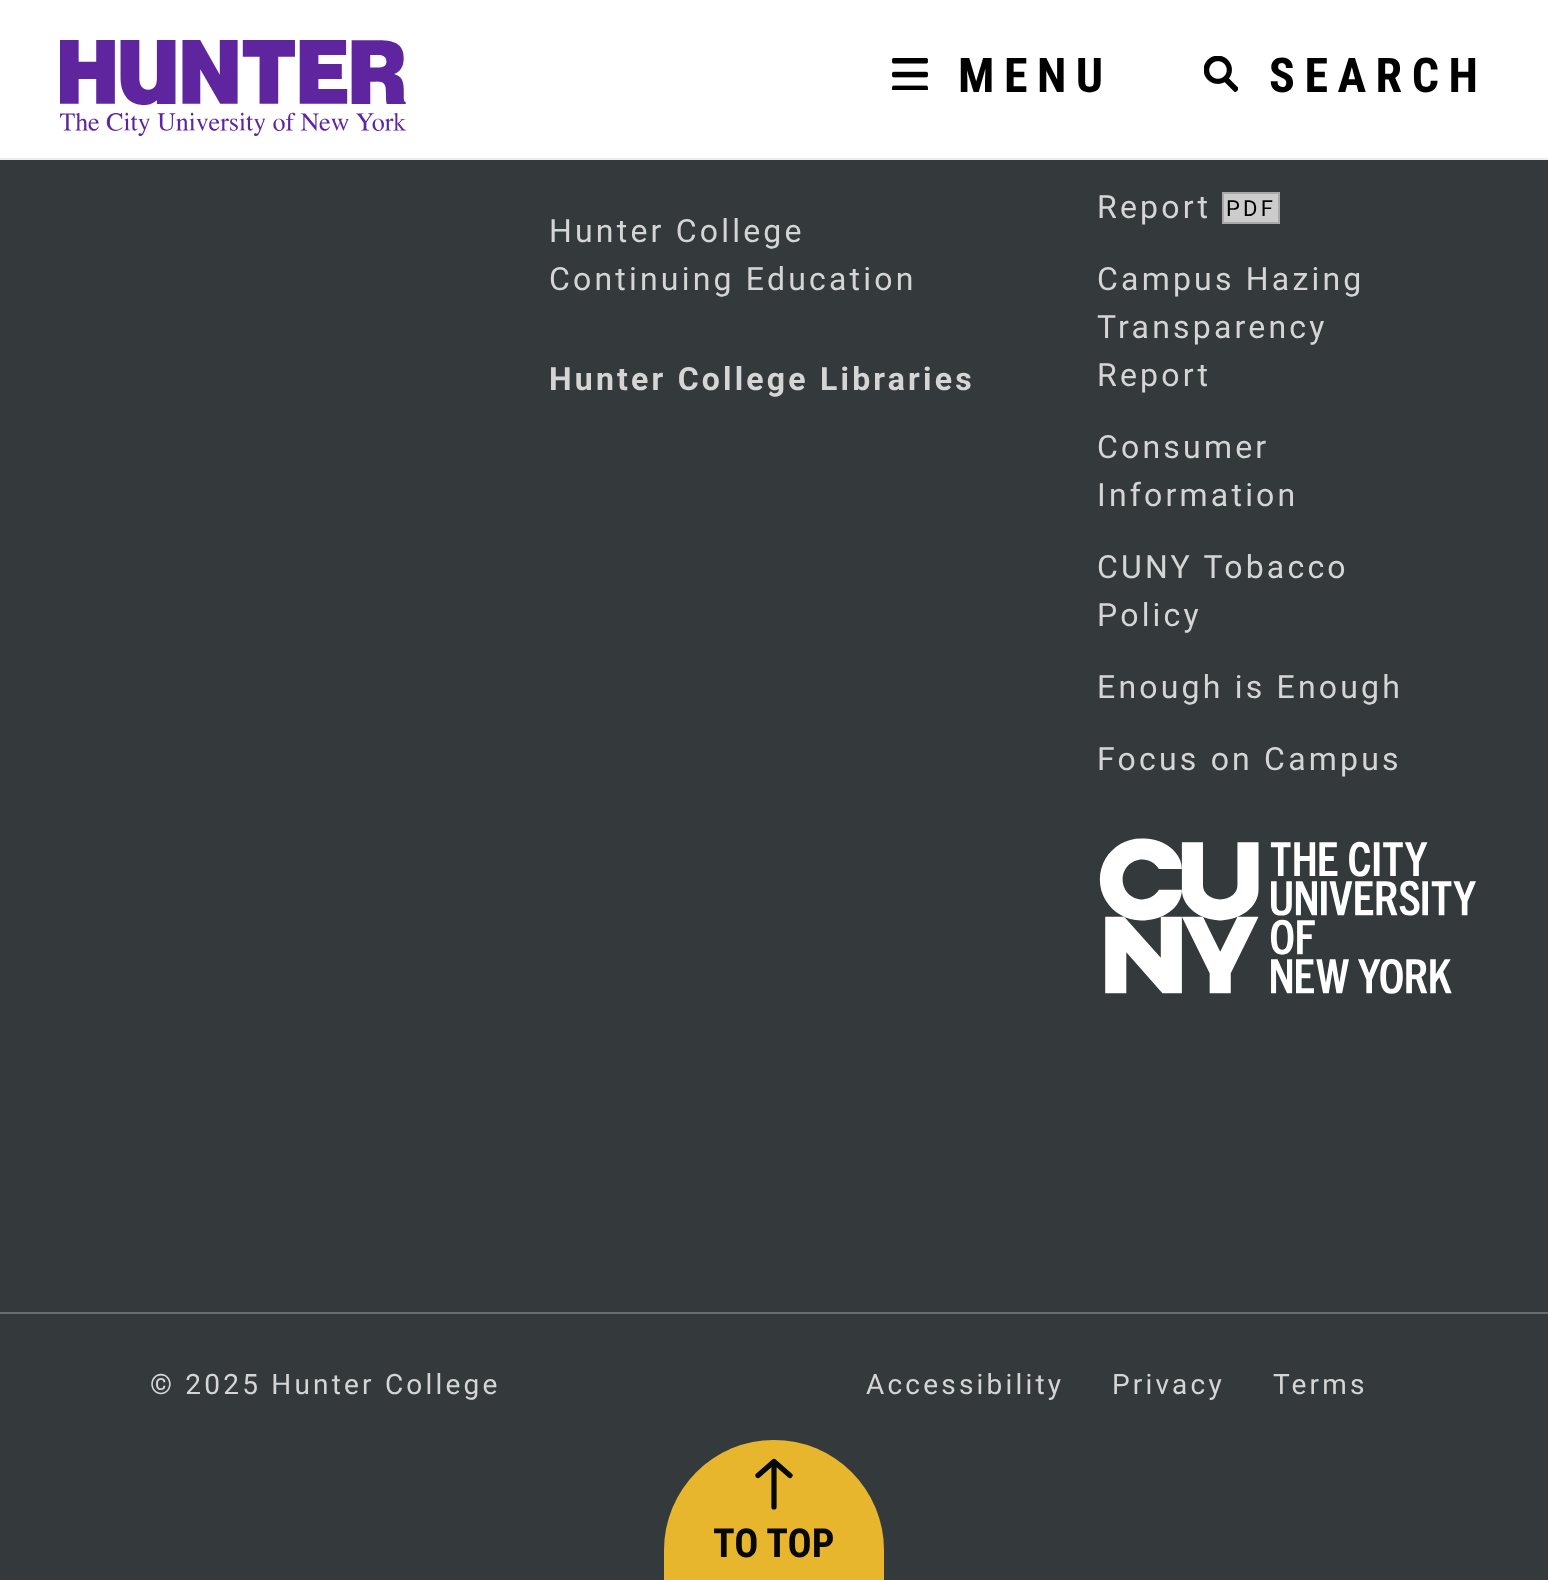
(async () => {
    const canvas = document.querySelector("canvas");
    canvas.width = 1548;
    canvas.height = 1580;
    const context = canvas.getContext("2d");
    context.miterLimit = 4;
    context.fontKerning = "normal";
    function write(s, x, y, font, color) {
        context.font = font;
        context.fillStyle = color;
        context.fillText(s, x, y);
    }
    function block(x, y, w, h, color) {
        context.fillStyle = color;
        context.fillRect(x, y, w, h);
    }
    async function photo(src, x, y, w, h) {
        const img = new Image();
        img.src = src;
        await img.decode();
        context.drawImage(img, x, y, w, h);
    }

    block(0, 0, 1548, 1580, "rgb(52, 57, 60)");
    block(0, 0, 1548, 158, "rgb(255, 255, 255)");
    block(0, 158, 1548, 2, "rgb(238, 236, 240)");
    await photo("media/1.png", 60, 40, 346, 96);
    await photo("media/2.png", 892, 58, 36, 32);
    context.letterSpacing = "9.5px";
    write("MENU", 958, 92, "bold 48px Roboto Condensed", "rgb(0, 0, 0)");
    await photo("media/3.png", 1204, 56, 34, 36);
    write("SEARCH", 1269, 92, "bold 48px Roboto Condensed", "rgb(0, 0, 0)");
    context.letterSpacing = "3.2px";
    write("Hunter College", 549, 242, "32px Roboto", "rgb(213, 213, 213)");
    write("Continuing Education", 549, 290, "32px Roboto", "rgb(213, 213, 213)");
    write("Hunter College Libraries", 549, 390, "bold 32px Roboto", "rgb(213, 213, 213)");
    write("Report", 1097, 218, "32px Roboto", "rgb(213, 213, 213)");
    context.fillStyle = "rgb(204, 204, 204)";
    context.beginPath();
    context.rect(1223, 193, 56, 30);
    context.fill();
    context.strokeStyle = "rgb(170, 170, 170)";
    context.lineWidth = 2;
    context.stroke();
    write("PDF", 1226, 216, "22px Roboto", "rgb(0, 0, 0)");
    write("Campus Hazing", 1097, 290, "32px Roboto", "rgb(213, 213, 213)");
    write("Transparency", 1097, 338, "32px Roboto", "rgb(213, 213, 213)");
    write("Report", 1097, 386, "32px Roboto", "rgb(213, 213, 213)");
    write("Consumer", 1097, 458, "32px Roboto", "rgb(213, 213, 213)");
    write("Information", 1097, 506, "32px Roboto", "rgb(213, 213, 213)");
    write("CUNY Tobacco", 1097, 578, "32px Roboto", "rgb(213, 213, 213)");
    write("Policy", 1097, 626, "32px Roboto", "rgb(213, 213, 213)");
    write("Enough is Enough", 1097, 698, "32px Roboto", "rgb(213, 213, 213)");
    write("Focus on Campus", 1097, 770, "32px Roboto", "rgb(213, 213, 213)");
    await photo("media/4.png", 1099, 838, 377, 156);
    block(0, 1312, 1548, 2, "rgb(105, 109, 112)");
    write("© 2025 Hunter College", 150, 1394, "28px Roboto", "rgb(213, 213, 213)");
    write("Accessibility", 866, 1394, "28px Roboto", "rgb(213, 213, 213)");
    write("Privacy", 1112, 1394, "28px Roboto", "rgb(213, 213, 213)");
    write("Terms", 1273, 1394, "28px Roboto", "rgb(213, 213, 213)");
    context.save();
    context.beginPath();
    context.roundRect(664, 1440, 220, 140, [110, 110, 0, 0]);
    context.clip();
    block(664, 1440, 220, 140, "rgb(231, 182, 44)");
    context.restore();
    context.beginPath();
    context.moveTo(774, 1467);
    context.lineTo(774, 1507);
    context.moveTo(790, 1475.5);
    context.lineTo(774, 1461.5);
    context.lineTo(758, 1475.5);
    context.strokeStyle = "rgb(6, 7, 7)";
    context.lineWidth = 5.2;
    context.lineCap = "round";
    context.lineJoin = "round";
    context.stroke();
    context.letterSpacing = "0px";
    write("TO TOP", 713, 1557, "bold 40px Roboto Condensed", "rgb(6, 7, 7)");
})();
